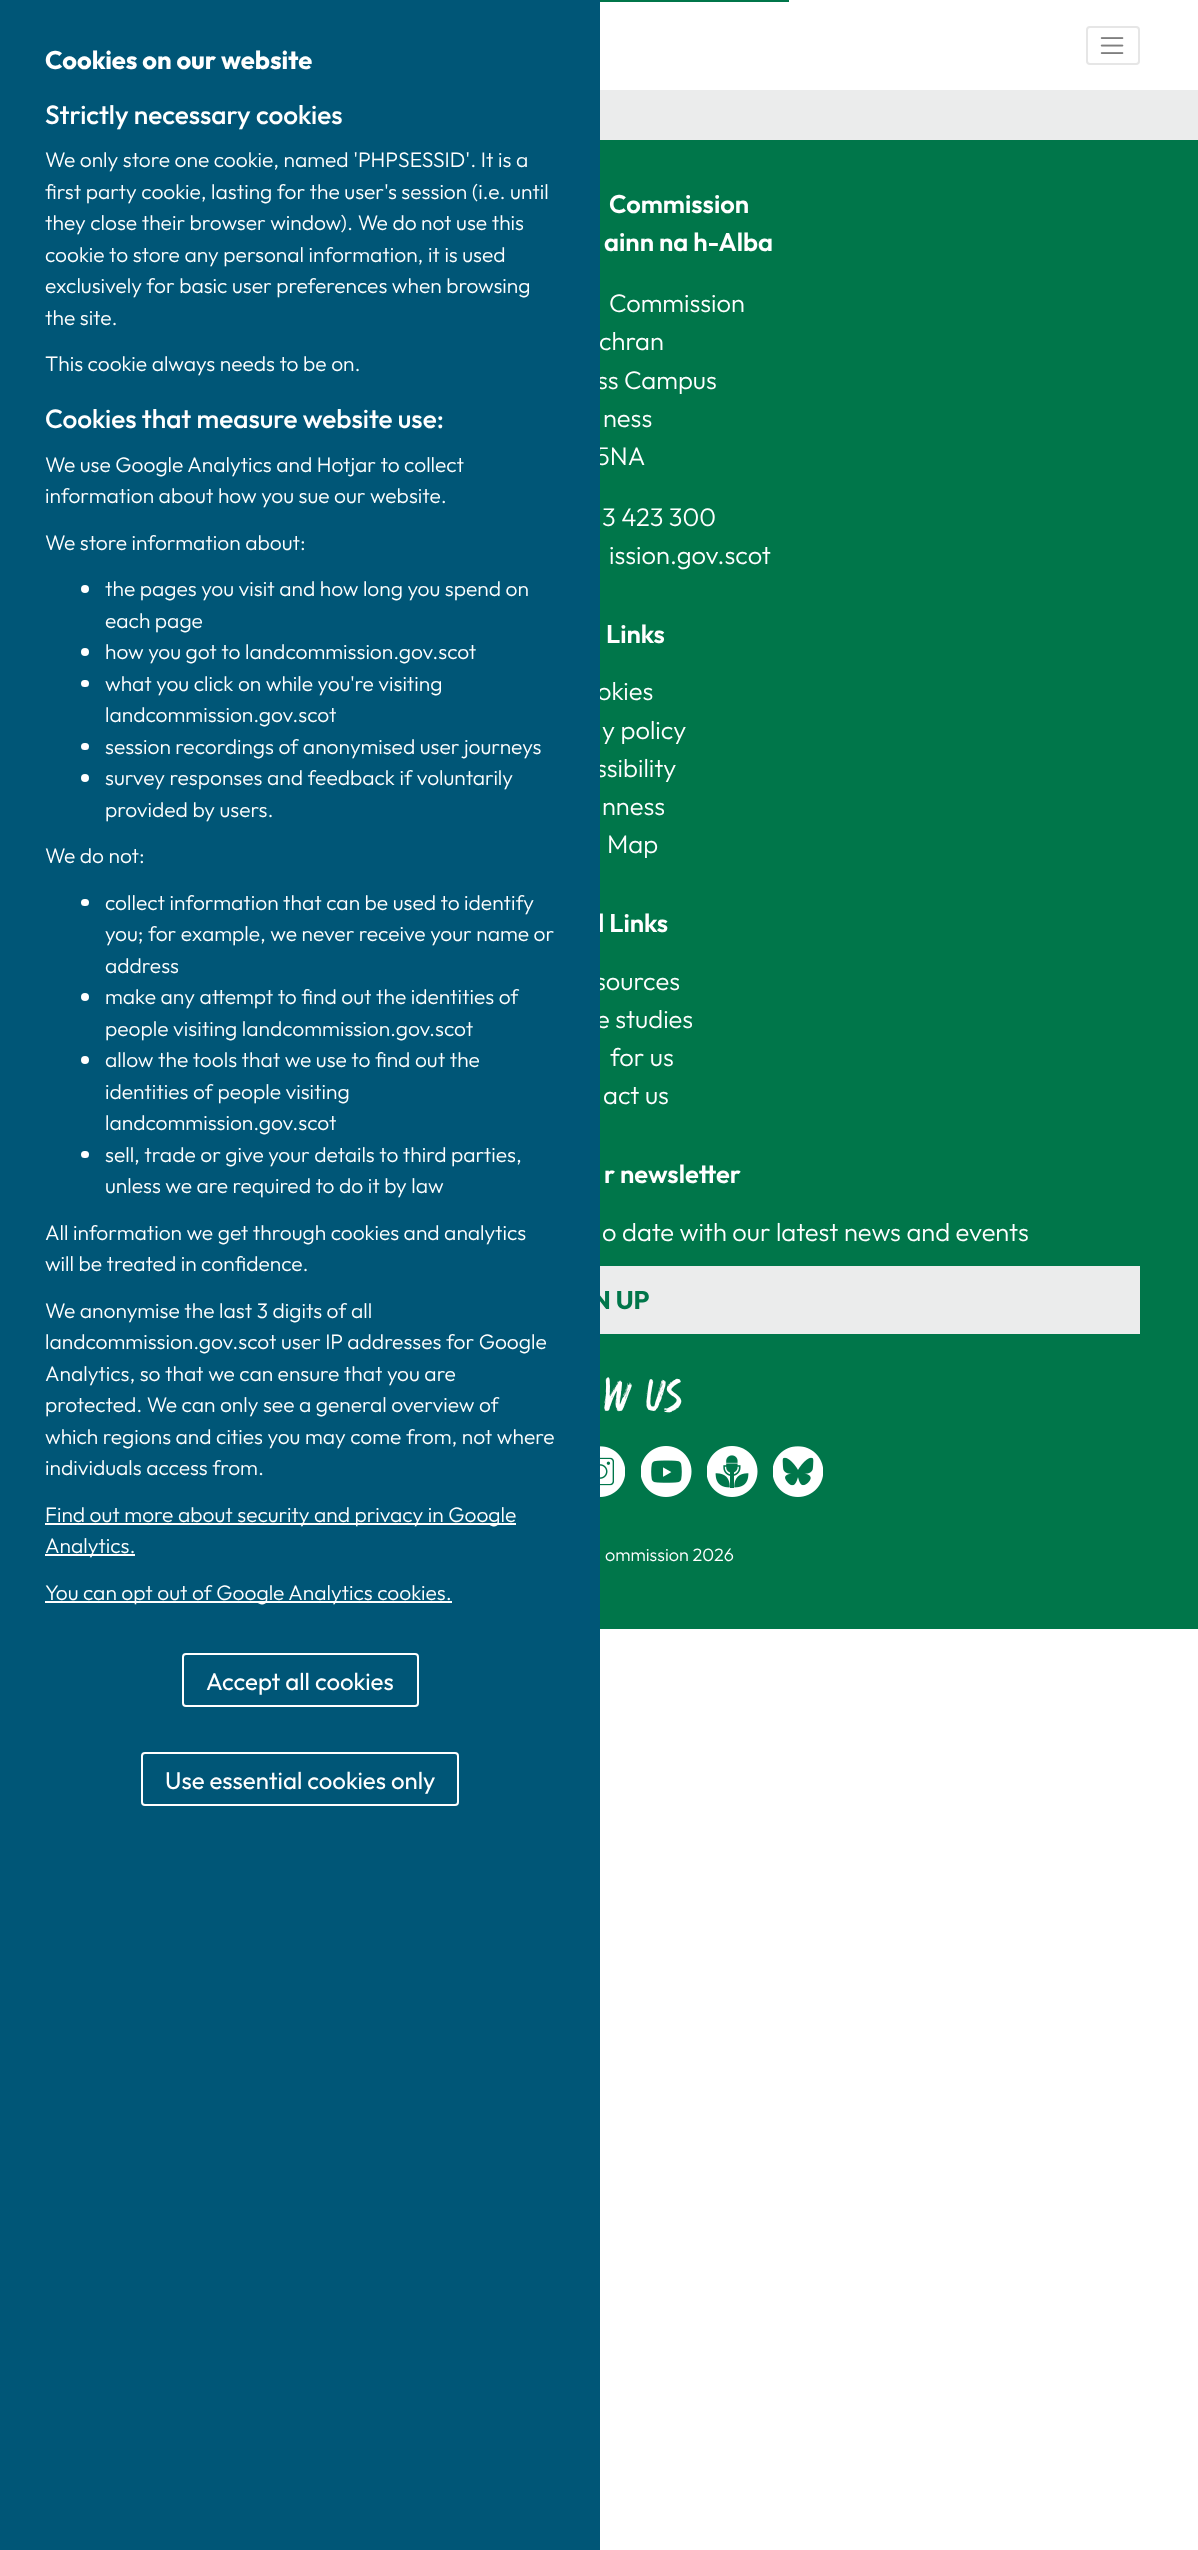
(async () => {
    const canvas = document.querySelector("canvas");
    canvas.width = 1198;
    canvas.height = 2550;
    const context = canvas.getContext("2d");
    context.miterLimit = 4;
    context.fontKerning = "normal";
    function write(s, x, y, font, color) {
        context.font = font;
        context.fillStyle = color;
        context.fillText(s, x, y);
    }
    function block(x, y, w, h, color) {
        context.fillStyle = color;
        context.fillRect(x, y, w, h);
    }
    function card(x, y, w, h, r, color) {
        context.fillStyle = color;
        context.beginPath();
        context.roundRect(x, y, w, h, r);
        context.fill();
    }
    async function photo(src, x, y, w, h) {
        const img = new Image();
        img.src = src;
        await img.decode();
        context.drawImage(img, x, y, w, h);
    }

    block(0, 0, 1198, 2550, "rgb(255, 255, 255)");
    block(600, 140, 598, 1489, "rgb(0, 118, 74)");
    write("ss Campus", 597, 389, "300 25.5px Outfit", "rgb(255, 255, 255)");
    write("5NA", 596, 465, "300 25.5px Outfit", "rgb(255, 255, 255)");
    write("okies", 597, 700, "300 25.5px Outfit", "rgb(255, 255, 255)");
    write("ssibility", 596, 777, "300 25.5px Outfit", "rgb(255, 255, 255)");
    write("l Links", 598, 932, "600 25.5px Outfit", "rgb(255, 255, 255)");
    write("sources", 595, 990, "300 25.5px Outfit", "rgb(255, 255, 255)");
    write("e studies", 596, 1028, "300 25.5px Outfit", "rgb(255, 255, 255)");
    block(600, 1266, 540, 68, "rgb(235, 236, 236)");
    write("N UP", 592, 1309, "bold 25.5px Outfit", "rgb(0, 118, 74)");
    block(0, 0, 600, 2550, "rgb(0, 86, 119)");
    write("Cookies on our website", 45, 69, "bold 25.5px Outfit", "rgb(255, 255, 255)");
    write("Strictly necessary cookies", 45, 124, "500 26.25px Outfit", "rgb(255, 255, 255)");
    write("We only store one cookie, named 'PHPSESSID'. It is a", 45, 167, "300 21px Outfit", "rgb(255, 255, 255)");
    write("first party cookie, lasting for the user's session (i.e. until", 45, 199, "300 21px Outfit", "rgb(255, 255, 255)");
    write("they close their browser window). We do not use this", 45, 230, "300 21px Outfit", "rgb(255, 255, 255)");
    write("cookie to store any personal information, it is used", 45, 262, "300 21px Outfit", "rgb(255, 255, 255)");
    write("exclusively for basic user preferences when browsing", 45, 293, "300 21px Outfit", "rgb(255, 255, 255)");
    write("the site.", 45, 325, "300 21px Outfit", "rgb(255, 255, 255)");
    write("This cookie always needs to be on.", 45, 371, "300 21px Outfit", "rgb(255, 255, 255)");
    write("Cookies that measure website use:", 45, 428, "500 26.25px Outfit", "rgb(255, 255, 255)");
    write("We use Google Analytics and Hotjar to collect", 45, 472, "300 21px Outfit", "rgb(255, 255, 255)");
    write("information about how you sue our website.", 45, 503, "300 21px Outfit", "rgb(255, 255, 255)");
    write("We store information about:", 45, 550, "300 21px Outfit", "rgb(255, 255, 255)");
    context.beginPath();
    context.arc(85, 589, 4, 0, Math.PI * 2);
    context.fill();
    write("the pages you visit and how long you spend on", 105, 596, "300 21px Outfit", "rgb(255, 255, 255)");
    write("each page", 105, 628, "300 21px Outfit", "rgb(255, 255, 255)");
    context.beginPath();
    context.arc(85, 652, 4, 0, Math.PI * 2);
    context.fill();
    write("how you got to landcommission.gov.scot", 105, 659, "300 21px Outfit", "rgb(255, 255, 255)");
    card(81, 680, 8, 7, 3.5, "rgb(255, 255, 255)");
    write("what you click on while you're visiting", 105, 691, "300 21px Outfit", "rgb(255, 255, 255)");
    write("landcommission.gov.scot", 105, 722, "300 21px Outfit", "rgb(255, 255, 255)");
    card(81, 743, 8, 7, 3.5, "rgb(255, 255, 255)");
    write("session recordings of anonymised user journeys", 105, 754, "300 21px Outfit", "rgb(255, 255, 255)");
    context.beginPath();
    context.arc(85, 778, 4, 0, Math.PI * 2);
    context.fill();
    write("survey responses and feedback if voluntarily", 105, 785, "300 21px Outfit", "rgb(255, 255, 255)");
    write("provided by users.", 105, 817, "300 21px Outfit", "rgb(255, 255, 255)");
    write("We do not:", 45, 863, "300 21px Outfit", "rgb(255, 255, 255)");
    card(81, 899, 8, 7, 3.5, "rgb(255, 255, 255)");
    write("collect information that can be used to identify", 105, 910, "300 21px Outfit", "rgb(255, 255, 255)");
    write("you; for example, we never receive your name or", 105, 941, "300 21px Outfit", "rgb(255, 255, 255)");
    write("address", 105, 973, "300 21px Outfit", "rgb(255, 255, 255)");
    context.beginPath();
    context.arc(85, 997, 4, 0, Math.PI * 2);
    context.fill();
    write("make any attempt to find out the identities of", 105, 1004, "300 21px Outfit", "rgb(255, 255, 255)");
    write("people visiting landcommission.gov.scot", 105, 1036, "300 21px Outfit", "rgb(255, 255, 255)");
    context.beginPath();
    context.arc(85, 1060, 4, 0, Math.PI * 2);
    context.fill();
    write("allow the tools that we use to find out the", 105, 1067, "300 21px Outfit", "rgb(255, 255, 255)");
    write("identities of people visiting", 105, 1099, "300 21px Outfit", "rgb(255, 255, 255)");
    write("landcommission.gov.scot", 105, 1130, "300 21px Outfit", "rgb(255, 255, 255)");
    card(81, 1151, 8, 7, 3.5, "rgb(255, 255, 255)");
    write("sell, trade or give your details to third parties,", 105, 1162, "300 21px Outfit", "rgb(255, 255, 255)");
    write("unless we are required to do it by law", 105, 1193, "300 21px Outfit", "rgb(255, 255, 255)");
    write("All information we get through cookies and analytics", 45, 1240, "300 21px Outfit", "rgb(255, 255, 255)");
    write("will be treated in confidence.", 45, 1271, "300 21px Outfit", "rgb(255, 255, 255)");
    write("We anonymise the last 3 digits of all", 45, 1318, "300 21px Outfit", "rgb(255, 255, 255)");
    write("landcommission.gov.scot user IP addresses for Google", 45, 1349, "300 21px Outfit", "rgb(255, 255, 255)");
    write("Analytics, so that we can ensure that you are", 45, 1381, "300 21px Outfit", "rgb(255, 255, 255)");
    write("protected. We can only see a general overview of", 45, 1412, "300 21px Outfit", "rgb(255, 255, 255)");
    write("which regions and cities you may come from, not where", 45, 1444, "300 21px Outfit", "rgb(255, 255, 255)");
    write("individuals access from.", 45, 1475, "300 21px Outfit", "rgb(255, 255, 255)");
    block(45, 1523, 471, 2, "rgb(255, 255, 255)");
    write("Find out more about security and privacy in Google", 45, 1522, "300 21px Outfit", "rgb(255, 255, 255)");
    block(45, 1554, 90, 2, "rgb(255, 255, 255)");
    write("Analytics.", 45, 1553, "300 21px Outfit", "rgb(255, 255, 255)");
    block(45, 1601, 407, 2, "rgb(255, 255, 255)");
    write("You can opt out of Google Analytics cookies.", 45, 1600, "300 21px Outfit", "rgb(255, 255, 255)");
    context.beginPath();
    context.roundRect(183, 1654, 235, 52, 3);
    context.strokeStyle = "rgb(255, 255, 255)";
    context.lineWidth = 2;
    context.stroke();
    write("Accept all cookies", 206, 1690, "24px Outfit", "rgb(255, 255, 255)");
    context.beginPath();
    context.roundRect(142, 1753, 316, 52, 3);
    context.stroke();
    write("Use essential cookies only", 165, 1789, "24px Outfit", "rgb(255, 255, 255)");
    context.strokeStyle = "rgb(0, 118, 74)";
    context.strokeRect(601, -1, 187, 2);
    context.beginPath();
    context.roundRect(1087, 27, 52, 37, 3);
    context.strokeStyle = "rgb(230, 230, 230)";
    context.stroke();
    await photo("media/1.png", 1100, 37, 24, 17);
    block(600, 90, 598, 50, "rgb(235, 236, 236)");
    write("Commission", 609, 213, "600 25.5px Outfit", "rgb(255, 255, 255)");
    write("ainn na h-Alba", 604, 251, "600 25.5px Outfit", "rgb(255, 255, 255)");
    write("Commission", 609, 312, "300 25.5px Outfit", "rgb(255, 255, 255)");
    write("chran", 599, 350, "300 25.5px Outfit", "rgb(255, 255, 255)");
    write("ness", 603, 427, "300 25.5px Outfit", "rgb(255, 255, 255)");
    write("3 423 300", 602, 526, "300 25.5px Outfit", "rgb(255, 255, 255)");
    write("ission.gov.scot", 609, 564, "300 25.5px Outfit", "rgb(255, 255, 255)");
    write("Links", 606, 643, "600 25.5px Outfit", "rgb(255, 255, 255)");
    write("y policy", 602, 739, "300 25.5px Outfit", "rgb(255, 255, 255)");
    write("nness", 602, 815, "300 25.5px Outfit", "rgb(255, 255, 255)");
    write("Map", 607, 853, "300 25.5px Outfit", "rgb(255, 255, 255)");
    write("for us", 610, 1066, "300 25.5px Outfit", "rgb(255, 255, 255)");
    write("act us", 603, 1104, "300 25.5px Outfit", "rgb(255, 255, 255)");
    write("r newsletter", 604, 1183, "600 25.5px Outfit", "rgb(255, 255, 255)");
    write("o date with our latest news and events", 602, 1241, "300 25.5px Outfit", "rgb(255, 255, 255)");
    write("w us", 599, 1412, "48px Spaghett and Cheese", "rgb(255, 255, 255)");
    await photo("media/2.png", 600, 1446, 25, 51);
    await photo("media/3.png", 641, 1446, 51, 51);
    await photo("media/4.png", 707, 1446, 51, 51);
    await photo("media/5.png", 773, 1446, 50, 51);
    write("ommission 2026", 605, 1561, "300 18px Outfit", "rgb(255, 255, 255)");
})();
